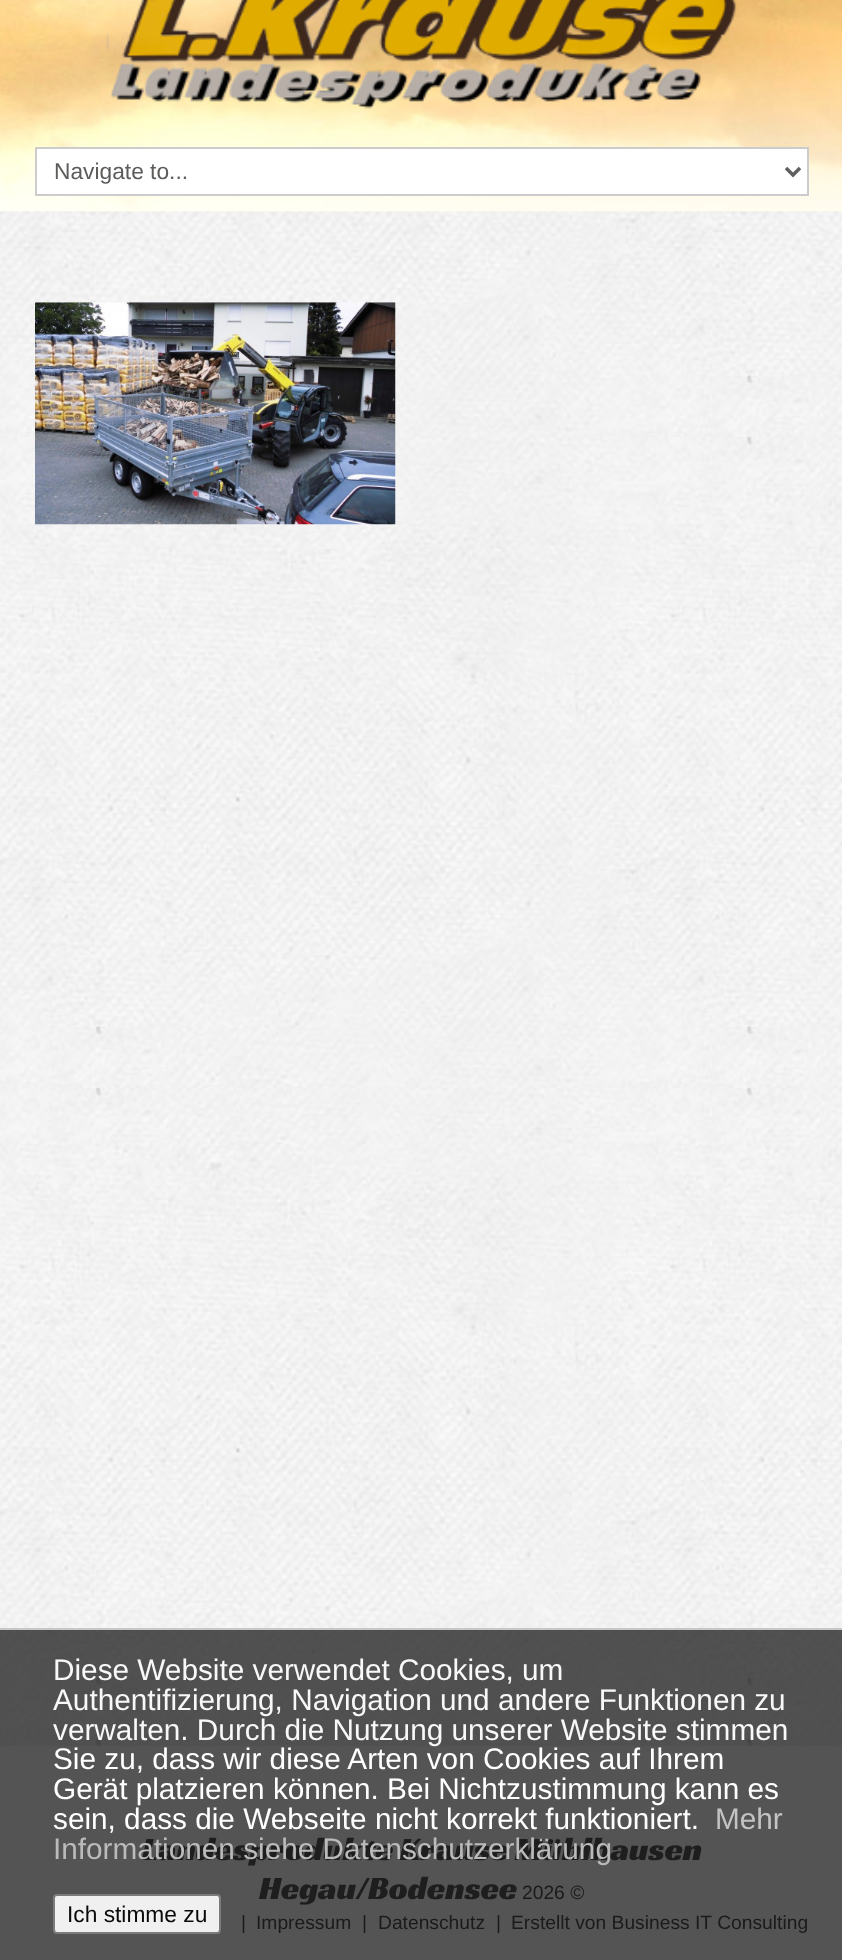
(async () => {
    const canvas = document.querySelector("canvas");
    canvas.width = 842;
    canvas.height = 1960;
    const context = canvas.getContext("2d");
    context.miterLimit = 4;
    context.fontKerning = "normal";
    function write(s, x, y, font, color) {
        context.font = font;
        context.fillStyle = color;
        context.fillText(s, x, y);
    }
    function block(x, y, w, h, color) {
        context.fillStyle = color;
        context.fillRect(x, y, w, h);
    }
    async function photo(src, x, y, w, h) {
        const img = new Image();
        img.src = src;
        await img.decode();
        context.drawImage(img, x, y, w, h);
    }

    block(0, 0, 842, 1960, "rgb(255, 255, 255)");
    await photo("media/1.png", 0, 211, 842, 1535);
    await photo("media/2.png", 0, 0, 842, 212);
    await photo("media/3.png", 0, 41, 842, 171);
    await photo("media/4.png", 106, 0, 631, 109);
    context.beginPath();
    context.rect(36, 148, 772, 47);
    context.fill();
    context.strokeStyle = "rgb(204, 204, 204)";
    context.lineWidth = 2;
    context.stroke();
    context.beginPath();
    context.moveTo(786, 168);
    context.lineTo(793, 175);
    context.lineTo(800, 168);
    context.strokeStyle = "rgb(96, 96, 96)";
    context.lineWidth = 3.5;
    context.stroke();
    write("Navigate to...", 54, 179, "22.75px Liberation Sans", "rgb(94, 92, 91)");
    await photo("media/5.png", 35, 302, 361, 223);
    write("Landesprodukte Krause Mühlhausen", 142, 1860, "33.25px Racing Sans One", "rgb(94, 92, 91)");
    write("Hegau/Bodensee", 259, 1899, "33.25px Racing Sans One", "rgb(94, 92, 91)");
    write("2026 ©", 522, 1899, "19.25px Liberation Sans", "rgb(84, 84, 84)");
    write("|", 241, 1929, "19.25px Liberation Sans", "rgb(84, 84, 84)");
    write("Impressum", 256, 1929, "19.25px Liberation Sans", "rgb(84, 84, 84)");
    write("|", 362, 1929, "19.25px Liberation Sans", "rgb(84, 84, 84)");
    write("Datenschutz", 378, 1929, "19.25px Liberation Sans", "rgb(84, 84, 84)");
    write("|", 496, 1929, "19.25px Liberation Sans", "rgb(84, 84, 84)");
    write("Erstellt von Business IT Consulting", 511, 1929, "19.25px Liberation Sans", "rgb(84, 84, 84)");
    block(0, 1628, 842, 332, "rgba(0, 0, 0, 0.67)");
    block(0, 1628, 842, 2, "rgba(204, 204, 204, 0.96)");
    write("Diese Website verwendet Cookies, um", 53, 1680, "29.75px Liberation Sans", "rgb(248, 248, 248)");
    write("Authentifizierung, Navigation und andere Funktionen zu", 53, 1710, "29.75px Liberation Sans", "rgb(248, 248, 248)");
    write("verwalten. Durch die Nutzung unserer Website stimmen", 53, 1740, "29.75px Liberation Sans", "rgb(248, 248, 248)");
    write("Sie zu, dass wir diese Arten von Cookies auf Ihrem", 53, 1769, "29.75px Liberation Sans", "rgb(255, 255, 255)");
    write("Gerät platzieren können. Bei Nichtzustimmung kann es", 53, 1799, "29.75px Liberation Sans", "rgb(255, 255, 255)");
    write("sein, dass die Webseite nicht korrekt funktioniert.", 53, 1829, "29.75px Liberation Sans", "rgb(255, 255, 255)");
    write("Mehr", 715, 1829, "29.75px Liberation Sans", "rgb(195, 195, 195)");
    write("Informationen siehe Datenschutzerklärung", 53, 1859, "29.75px Liberation Sans", "rgb(187, 187, 187)");
    context.fillStyle = "rgb(240, 240, 240)";
    context.beginPath();
    context.roundRect(54, 1895, 166, 38, 3);
    context.fill();
    context.strokeStyle = "rgb(123, 123, 123)";
    context.lineWidth = 2;
    context.stroke();
    write("Ich stimme zu", 67, 1922, "22.75px Liberation Sans", "rgb(10, 10, 10)");
})();
